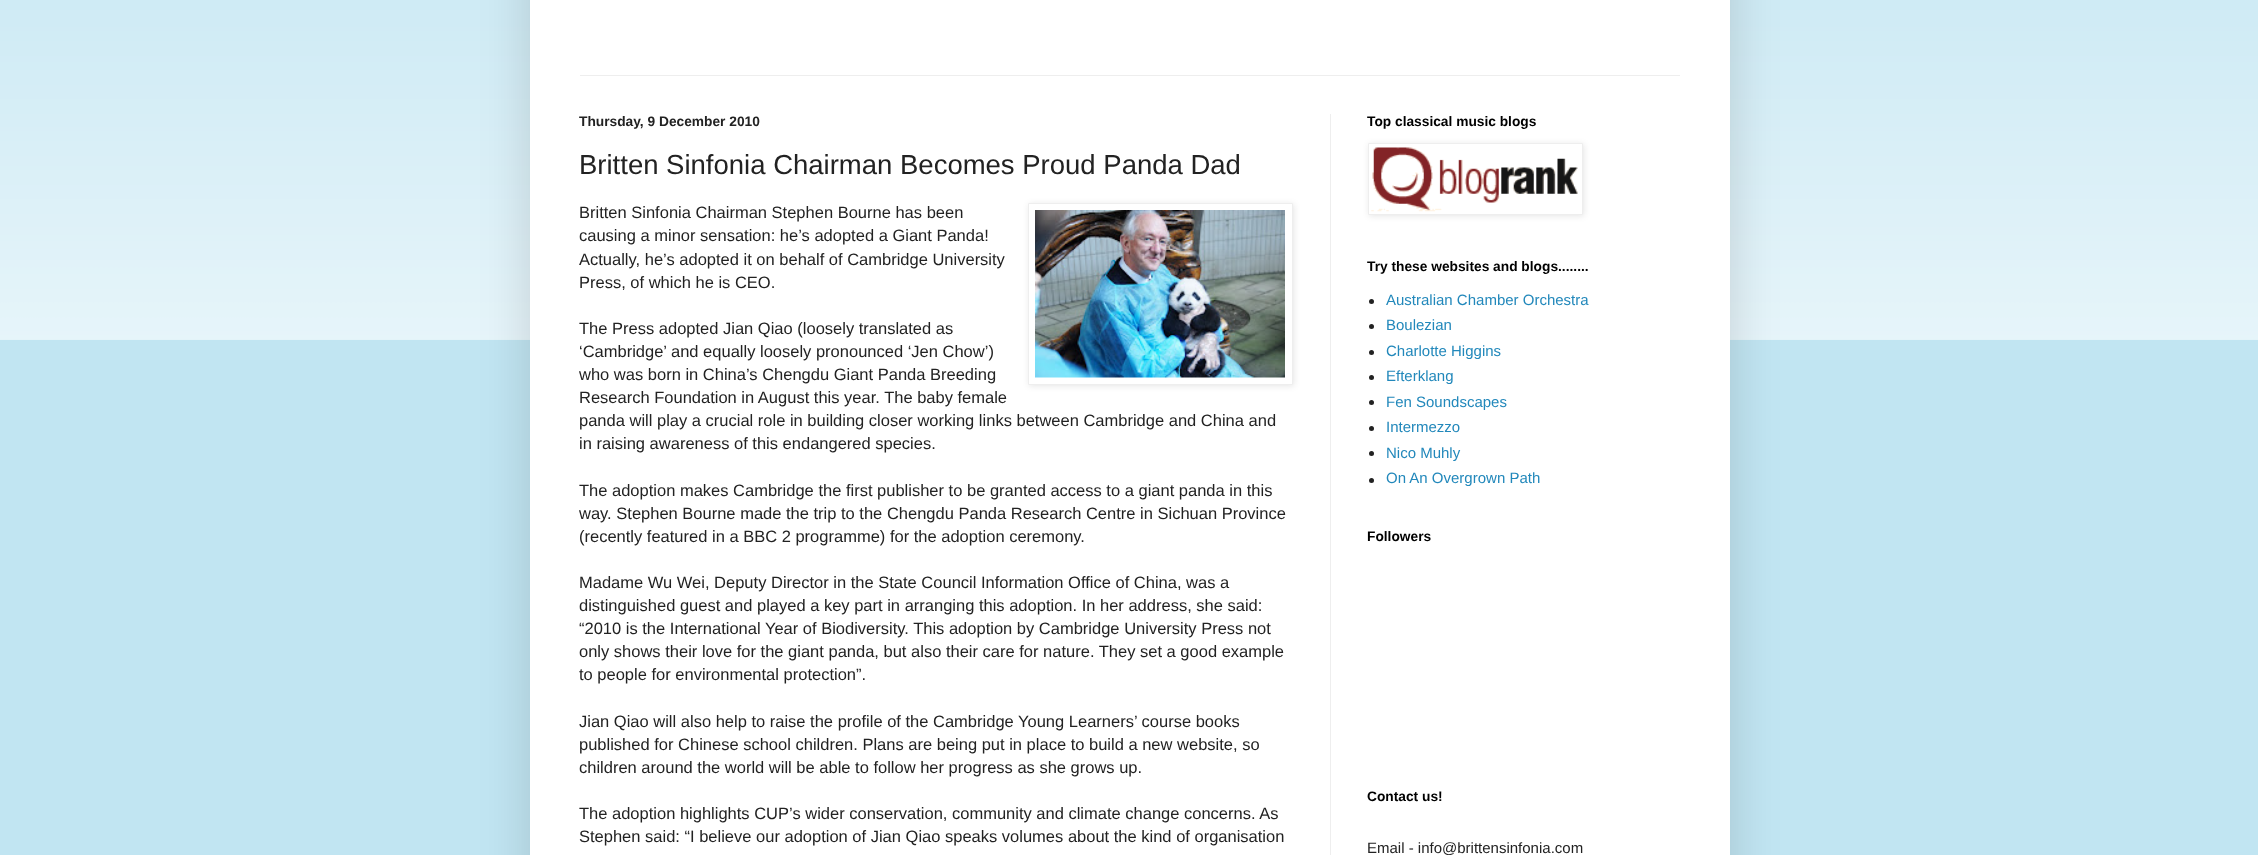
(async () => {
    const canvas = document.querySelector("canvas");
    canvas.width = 2258;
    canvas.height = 855;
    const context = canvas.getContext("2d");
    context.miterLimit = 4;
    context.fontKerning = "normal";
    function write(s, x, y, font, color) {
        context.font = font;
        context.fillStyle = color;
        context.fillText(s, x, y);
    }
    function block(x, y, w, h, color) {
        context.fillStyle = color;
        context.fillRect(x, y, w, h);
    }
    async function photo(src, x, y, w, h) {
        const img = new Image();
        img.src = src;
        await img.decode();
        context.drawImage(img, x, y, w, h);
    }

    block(0, 0, 2258, 855, "rgb(193, 229, 242)");
    await photo("media/1.png", 0, 0, 2258, 340);
    context.fillStyle = "rgba(0, 0, 0, 0.15)";
    context.filter = "blur(25px)";
    context.beginPath();
    context.rect(530, -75, 1200, 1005);
    context.fill();
    context.filter = "none";
    block(530, 0, 1200, 855, "rgb(255, 255, 255)");
    block(580, 75, 1100, 1, "rgb(238, 238, 238)");
    block(1330, 114, 1, 741, "rgb(238, 238, 238)");
    write("Thursday, 9 December 2010", 579, 126, "bold 13.75px Liberation Sans", "rgb(34, 34, 34)");
    write("Britten Sinfonia Chairman Becomes Proud Panda Dad", 579, 174, "27.5px Liberation Sans", "rgb(34, 34, 34)");
    context.fillStyle = "rgba(0, 0, 0, 0.1)";
    context.filter = "blur(3px)";
    context.beginPath();
    context.rect(1029, 204, 265, 182);
    context.fill();
    context.filter = "none";
    context.fillStyle = "rgb(255, 255, 255)";
    context.beginPath();
    context.rect(1028.5, 203.5, 264, 181);
    context.fill();
    context.strokeStyle = "rgb(238, 238, 238)";
    context.stroke();
    await photo("media/2.png", 1035, 210, 250, 168);
    write("Britten Sinfonia Chairman Stephen Bourne has been", 579, 218, "16.5px Liberation Sans", "rgb(34, 34, 34)");
    write("causing a minor sensation: he’s adopted a Giant Panda!", 579, 241, "16.5px Liberation Sans", "rgb(34, 34, 34)");
    write("Actually, he’s adopted it on behalf of Cambridge University", 579, 265, "16.5px Liberation Sans", "rgb(34, 34, 34)");
    write("Press, of which he is CEO.", 579, 288, "16.5px Liberation Sans", "rgb(34, 34, 34)");
    write("The Press adopted Jian Qiao (loosely translated as", 579, 334, "16.5px Liberation Sans", "rgb(34, 34, 34)");
    write("‘Cambridge’ and equally loosely pronounced ‘Jen Chow’)", 579, 357, "16.5px Liberation Sans", "rgb(34, 34, 34)");
    write("who was born in China’s Chengdu Giant Panda Breeding", 579, 380, "16.5px Liberation Sans", "rgb(34, 34, 34)");
    write("Research Foundation in August this year. The baby female", 579, 403, "16.5px Liberation Sans", "rgb(34, 34, 34)");
    write("panda will play a crucial role in building closer working links between Cambridge and China and", 579, 426, "16.5px Liberation Sans", "rgb(34, 34, 34)");
    write("in raising awareness of this endangered species.", 579, 449, "16.5px Liberation Sans", "rgb(34, 34, 34)");
    write("The adoption makes Cambridge the first publisher to be granted access to a giant panda in this", 579, 496, "16.5px Liberation Sans", "rgb(34, 34, 34)");
    write("way. Stephen Bourne made the trip to the Chengdu Panda Research Centre in Sichuan Province", 579, 519, "16.5px Liberation Sans", "rgb(34, 34, 34)");
    write("(recently featured in a BBC 2 programme) for the adoption ceremony.", 579, 542, "16.5px Liberation Sans", "rgb(34, 34, 34)");
    write("Madame Wu Wei, Deputy Director in the State Council Information Office of China, was a", 579, 588, "16.5px Liberation Sans", "rgb(34, 34, 34)");
    write("distinguished guest and played a key part in arranging this adoption. In her address, she said:", 579, 611, "16.5px Liberation Sans", "rgb(34, 34, 34)");
    write("“2010 is the International Year of Biodiversity. This adoption by Cambridge University Press not", 579, 634, "16.5px Liberation Sans", "rgb(34, 34, 34)");
    write("only shows their love for the giant panda, but also their care for nature. They set a good example", 579, 657, "16.5px Liberation Sans", "rgb(34, 34, 34)");
    write("to people for environmental protection”.", 579, 680, "16.5px Liberation Sans", "rgb(34, 34, 34)");
    write("Jian Qiao will also help to raise the profile of the Cambridge Young Learners’ course books", 579, 727, "16.5px Liberation Sans", "rgb(34, 34, 34)");
    write("published for Chinese school children. Plans are being put in place to build a new website, so", 579, 750, "16.5px Liberation Sans", "rgb(34, 34, 34)");
    write("children around the world will be able to follow her progress as she grows up.", 579, 773, "16.5px Liberation Sans", "rgb(34, 34, 34)");
    write("The adoption highlights CUP’s wider conservation, community and climate change concerns. As", 579, 819, "16.5px Liberation Sans", "rgb(34, 34, 34)");
    write("Stephen said: “I believe our adoption of Jian Qiao speaks volumes about the kind of organisation", 579, 842, "16.5px Liberation Sans", "rgb(34, 34, 34)");
    write("Top classical music blogs", 1367, 126, "bold 13.75px Liberation Sans", "rgb(0, 0, 0)");
    context.fillStyle = "rgba(0, 0, 0, 0.1)";
    context.filter = "blur(3px)";
    context.beginPath();
    context.rect(1369, 144, 215, 72);
    context.fill();
    context.filter = "none";
    context.fillStyle = "rgb(255, 255, 255)";
    context.beginPath();
    context.rect(1368.5, 143.5, 214, 71);
    context.fill();
    context.stroke();
    await photo("media/3.png", 1371, 147, 207, 65);
    write("Try these websites and blogs........", 1367, 271, "bold 13.75px Liberation Sans", "rgb(0, 0, 0)");
    context.fillStyle = "rgb(34, 34, 34)";
    context.beginPath();
    context.arc(1371.5, 301.5, 2.5, 0, Math.PI * 2);
    context.fill();
    write("Australian Chamber Orchestra", 1386, 305, "15px Liberation Sans", "rgb(34, 136, 187)");
    context.fillStyle = "rgb(34, 34, 34)";
    context.beginPath();
    context.arc(1371.5, 326.5, 2.5, 0, Math.PI * 2);
    context.fill();
    write("Boulezian", 1386, 330, "15px Liberation Sans", "rgb(34, 136, 187)");
    context.fillStyle = "rgb(34, 34, 34)";
    context.beginPath();
    context.arc(1371.5, 352.5, 2.5, 0, Math.PI * 2);
    context.fill();
    write("Charlotte Higgins", 1386, 356, "15px Liberation Sans", "rgb(34, 136, 187)");
    context.fillStyle = "rgb(34, 34, 34)";
    context.beginPath();
    context.arc(1371.5, 377.5, 2.5, 0, Math.PI * 2);
    context.fill();
    write("Efterklang", 1386, 381, "15px Liberation Sans", "rgb(34, 136, 187)");
    context.fillStyle = "rgb(34, 34, 34)";
    context.beginPath();
    context.arc(1371.5, 402.5, 2.5, 0, Math.PI * 2);
    context.fill();
    write("Fen Soundscapes", 1386, 407, "15px Liberation Sans", "rgb(34, 136, 187)");
    context.fillStyle = "rgb(34, 34, 34)";
    context.beginPath();
    context.arc(1371.5, 428.5, 2.5, 0, Math.PI * 2);
    context.fill();
    write("Intermezzo", 1386, 432, "15px Liberation Sans", "rgb(34, 136, 187)");
    context.fillStyle = "rgb(34, 34, 34)";
    context.beginPath();
    context.arc(1371.5, 453.5, 2.5, 0, Math.PI * 2);
    context.fill();
    write("Nico Muhly", 1386, 458, "15px Liberation Sans", "rgb(34, 136, 187)");
    context.fillStyle = "rgb(34, 34, 34)";
    context.beginPath();
    context.arc(1371.5, 480.5, 2.5, 0, Math.PI * 2);
    context.fill();
    write("On An Overgrown Path", 1386, 483, "15px Liberation Sans", "rgb(34, 136, 187)");
    write("Followers", 1367, 541, "bold 13.75px Liberation Sans", "rgb(0, 0, 0)");
    write("Contact us!", 1367, 801, "bold 13.75px Liberation Sans", "rgb(0, 0, 0)");
    write("Email - info@brittensinfonia.com", 1367, 853, "15px Liberation Sans", "rgb(34, 34, 34)");
})();
